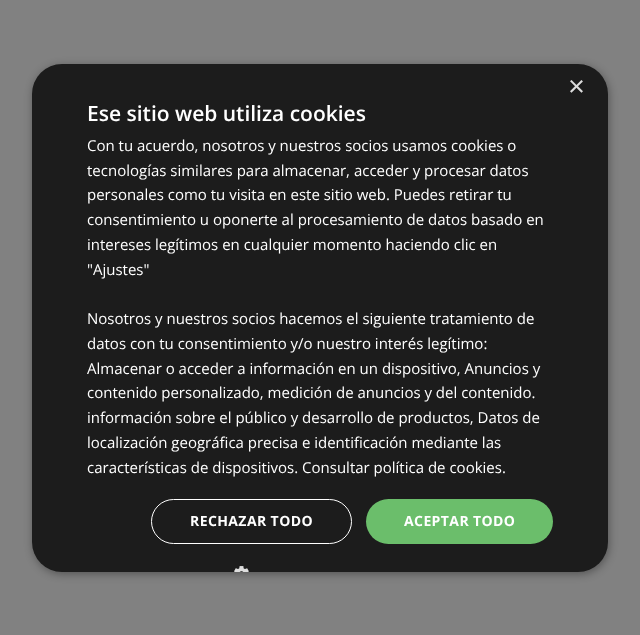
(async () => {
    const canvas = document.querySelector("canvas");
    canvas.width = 640;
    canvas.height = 635;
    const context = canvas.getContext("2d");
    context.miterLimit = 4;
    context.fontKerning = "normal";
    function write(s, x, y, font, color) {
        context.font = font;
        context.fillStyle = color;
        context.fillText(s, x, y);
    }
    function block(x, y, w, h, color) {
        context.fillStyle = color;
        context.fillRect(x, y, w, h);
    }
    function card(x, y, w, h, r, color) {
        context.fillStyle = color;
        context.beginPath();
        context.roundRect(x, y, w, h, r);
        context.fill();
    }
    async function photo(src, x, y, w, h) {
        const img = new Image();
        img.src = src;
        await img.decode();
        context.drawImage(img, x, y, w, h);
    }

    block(0, 0, 640, 635, "rgb(129, 129, 129)");
    context.fillStyle = "rgba(0, 0, 0, 0.35)";
    context.filter = "blur(4px)";
    context.beginPath();
    context.roundRect(33, 66, 576, 508, 30);
    context.fill();
    context.filter = "none";
    card(32, 64, 576, 508, 30, "rgb(28, 28, 28)");
    write("×", 568, 96, "29px Liberation Sans", "rgb(221, 221, 221)");
    write("Ese sitio web utiliza cookies", 87, 121, "600 21px Open Sans", "rgb(255, 255, 255)");
    write("Con tu acuerdo, nosotros y nuestros socios usamos cookies o", 87, 151, "15px Open Sans", "rgb(255, 255, 255)");
    write("tecnologías similares para almacenar, acceder y procesar datos", 87, 176, "15px Open Sans", "rgb(255, 255, 255)");
    write("personales como tu visita en este sitio web. Puedes retirar tu", 87, 200, "15px Open Sans", "rgb(255, 255, 255)");
    write("consentimiento u oponerte al procesamiento de datos basado en", 87, 225, "15px Open Sans", "rgb(255, 255, 255)");
    write("intereses legítimos en cualquier momento haciendo clic en", 87, 250, "15px Open Sans", "rgb(255, 255, 255)");
    write("\"Ajustes\"", 87, 275, "15px Open Sans", "rgb(255, 255, 255)");
    write("Nosotros y nuestros socios hacemos el siguiente tratamiento de", 87, 324, "15px Open Sans", "rgb(255, 255, 255)");
    write("datos con tu consentimiento y/o nuestro interés legítimo:", 87, 349, "15px Open Sans", "rgb(255, 255, 255)");
    write("Almacenar o acceder a información en un dispositivo, Anuncios y", 87, 374, "15px Open Sans", "rgb(255, 255, 255)");
    write("contenido personalizado, medición de anuncios y del contenido.", 87, 398, "15px Open Sans", "rgb(255, 255, 255)");
    write("información sobre el público y desarrollo de productos, Datos de", 87, 423, "15px Open Sans", "rgb(255, 255, 255)");
    write("localización geográfica precisa e identificación mediante las", 87, 448, "15px Open Sans", "rgb(255, 255, 255)");
    write("características de dispositivos. Consultar política de cookies.", 87, 473, "15px Open Sans", "rgb(255, 255, 255)");
    context.beginPath();
    context.roundRect(151.5, 499.5, 200, 44, 22);
    context.strokeStyle = "rgb(255, 255, 255)";
    context.stroke();
    context.letterSpacing = "0.4px";
    write("RECHAZAR TODO", 190, 526, "bold 14px Open Sans", "rgb(255, 255, 255)");
    card(366, 499, 187, 45, 22.5, "rgb(107, 190, 107)");
    write("ACEPTAR TODO", 404, 526, "bold 14px Open Sans", "rgb(255, 255, 255)");
    await photo("media/1.png", 234, 566, 15, 6);
})();
